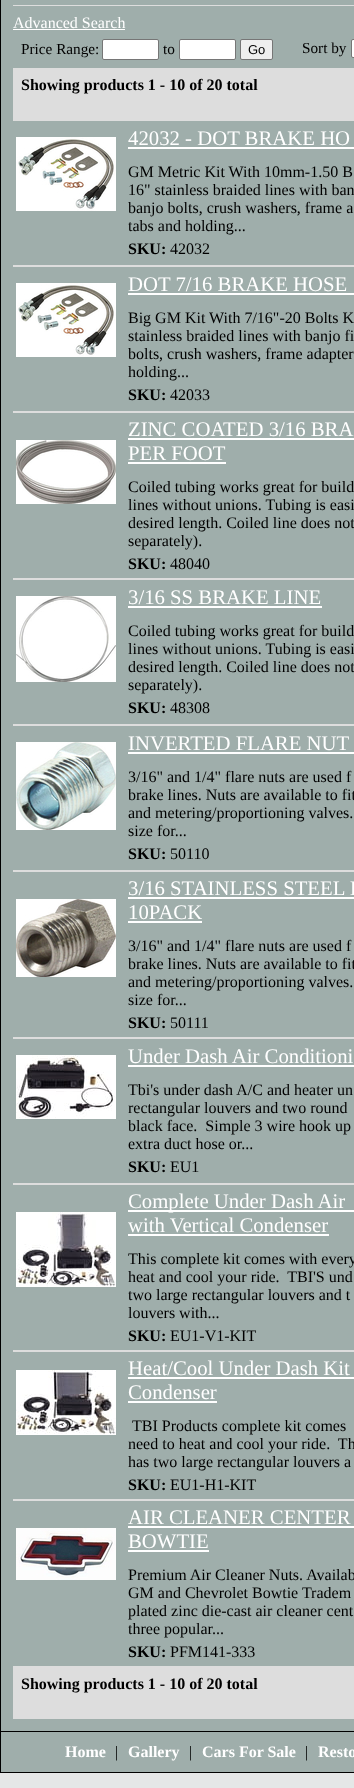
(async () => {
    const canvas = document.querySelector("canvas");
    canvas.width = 354;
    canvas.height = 1788;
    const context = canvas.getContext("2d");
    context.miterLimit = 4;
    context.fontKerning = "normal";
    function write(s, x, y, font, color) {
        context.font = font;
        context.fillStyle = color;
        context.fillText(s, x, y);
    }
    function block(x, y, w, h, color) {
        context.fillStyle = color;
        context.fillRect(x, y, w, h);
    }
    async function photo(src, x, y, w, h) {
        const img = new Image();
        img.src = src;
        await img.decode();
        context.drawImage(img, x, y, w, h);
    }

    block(0, 0, 354, 1788, "rgb(229, 231, 231)");
    block(1, 0, 353, 1772, "rgb(159, 174, 171)");
    context.strokeStyle = "rgb(0, 0, 0)";
    context.strokeRect(0.5, -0.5, 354, 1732);
    block(13, 5, 341, 1, "rgb(221, 221, 221)");
    write("Advanced Search", 13, 28, "16px Liberation Serif", "rgb(255, 255, 255)");
    block(13, 29, 112, 1, "rgb(255, 255, 255)");
    write("Price Range:", 21, 54, "15.25px Liberation Serif", "rgb(0, 0, 0)");
    context.fillStyle = "rgb(255, 255, 255)";
    context.beginPath();
    context.roundRect(102.5, 39.5, 56, 20, 1.5);
    context.fill();
    context.strokeStyle = "rgb(118, 118, 118)";
    context.stroke();
    write("to", 163, 54, "15.25px Liberation Serif", "rgb(0, 0, 0)");
    context.fillStyle = "rgb(255, 255, 255)";
    context.beginPath();
    context.roundRect(179.5, 39.5, 56, 20, 1.5);
    context.fill();
    context.stroke();
    context.fillStyle = "rgb(239, 239, 239)";
    context.beginPath();
    context.roundRect(240.5, 39.5, 32, 20, 1.5);
    context.fill();
    context.stroke();
    write("Go", 248, 54, "13px Liberation Sans", "rgb(0, 0, 0)");
    write("Sort by", 302, 53, "15.25px Liberation Serif", "rgb(0, 0, 0)");
    context.fillStyle = "rgb(255, 255, 255)";
    context.beginPath();
    context.roundRect(351.5, 39.5, 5, 18, 1.5);
    context.fill();
    context.stroke();
    block(13, 68, 341, 53, "rgb(221, 221, 221)");
    write("Showing products 1 - 10 of 20 total", 21, 90, "bold 16px Liberation Serif", "rgb(0, 0, 0)");
    block(13, 265, 341, 2, "rgb(221, 221, 221)");
    await photo("media/1.png", 16, 137, 100, 74);
    write("42032 - DOT BRAKE HO", 128, 145, "20.75px Liberation Serif", "rgb(255, 255, 255)");
    block(128, 147, 226, 2, "rgb(255, 255, 255)");
    write("GM Metric Kit With 10mm-1.50 B", 128, 177, "16px Liberation Serif", "rgb(0, 0, 0)");
    write("16\" stainless braided lines with ban", 128, 195, "16px Liberation Serif", "rgb(0, 0, 0)");
    write("banjo bolts, crush washers, frame a", 128, 213, "16px Liberation Serif", "rgb(0, 0, 0)");
    write("tabs and holding...", 128, 231, "16px Liberation Serif", "rgb(0, 0, 0)");
    write("SKU:", 128, 254, "bold 16px Liberation Serif", "rgb(0, 0, 0)");
    write("42032", 170, 254, "16px Liberation Serif", "rgb(0, 0, 0)");
    block(13, 411, 341, 2, "rgb(221, 221, 221)");
    await photo("media/2.png", 16, 283, 100, 74);
    write("DOT 7/16 BRAKE HOSE", 128, 291, "20.75px Liberation Serif", "rgb(255, 255, 255)");
    block(128, 293, 226, 2, "rgb(255, 255, 255)");
    write("Big GM Kit With 7/16\"-20 Bolts K", 128, 323, "16px Liberation Serif", "rgb(0, 0, 0)");
    write("stainless braided lines with banjo fi", 128, 341, "16px Liberation Serif", "rgb(0, 0, 0)");
    write("bolts, crush washers, frame adapter", 128, 359, "16px Liberation Serif", "rgb(0, 0, 0)");
    write("holding...", 128, 377, "16px Liberation Serif", "rgb(0, 0, 0)");
    write("SKU:", 128, 400, "bold 16px Liberation Serif", "rgb(0, 0, 0)");
    write("42033", 170, 400, "16px Liberation Serif", "rgb(0, 0, 0)");
    block(13, 578, 341, 2, "rgb(221, 221, 221)");
    await photo("media/3.png", 16, 440, 100, 64);
    write("ZINC COATED 3/16 BRA", 128, 436, "20.75px Liberation Serif", "rgb(255, 255, 255)");
    block(128, 438, 226, 2, "rgb(255, 255, 255)");
    write("PER FOOT", 128, 460, "20.75px Liberation Serif", "rgb(255, 255, 255)");
    block(128, 462, 98, 2, "rgb(255, 255, 255)");
    write("Coiled tubing works great for build", 128, 492, "16px Liberation Serif", "rgb(0, 0, 0)");
    write("lines without unions. Tubing is easi", 128, 510, "16px Liberation Serif", "rgb(0, 0, 0)");
    write("desired length. Coiled line does not", 128, 528, "16px Liberation Serif", "rgb(0, 0, 0)");
    write("separately).", 128, 546, "16px Liberation Serif", "rgb(0, 0, 0)");
    write("SKU:", 128, 569, "bold 16px Liberation Serif", "rgb(0, 0, 0)");
    write("48040", 170, 569, "16px Liberation Serif", "rgb(0, 0, 0)");
    block(13, 724, 341, 2, "rgb(221, 221, 221)");
    await photo("media/4.png", 16, 596, 100, 86);
    write("3/16 SS BRAKE LINE", 128, 604, "20.75px Liberation Serif", "rgb(255, 255, 255)");
    block(128, 606, 194, 2, "rgb(255, 255, 255)");
    write("Coiled tubing works great for build", 128, 636, "16px Liberation Serif", "rgb(0, 0, 0)");
    write("lines without unions. Tubing is easi", 128, 654, "16px Liberation Serif", "rgb(0, 0, 0)");
    write("desired length. Coiled line does not", 128, 672, "16px Liberation Serif", "rgb(0, 0, 0)");
    write("separately).", 128, 690, "16px Liberation Serif", "rgb(0, 0, 0)");
    write("SKU:", 128, 713, "bold 16px Liberation Serif", "rgb(0, 0, 0)");
    write("48308", 170, 713, "16px Liberation Serif", "rgb(0, 0, 0)");
    block(13, 870, 341, 2, "rgb(221, 221, 221)");
    await photo("media/5.png", 16, 742, 100, 88);
    write("INVERTED FLARE NUT", 128, 750, "20.75px Liberation Serif", "rgb(255, 255, 255)");
    block(128, 752, 226, 2, "rgb(255, 255, 255)");
    write("3/16\" and 1/4\" flare nuts are used f", 128, 782, "16px Liberation Serif", "rgb(0, 0, 0)");
    write("brake lines. Nuts are available to fit", 128, 800, "16px Liberation Serif", "rgb(0, 0, 0)");
    write("and metering/proportioning valves.", 128, 818, "16px Liberation Serif", "rgb(0, 0, 0)");
    write("size for...", 128, 836, "16px Liberation Serif", "rgb(0, 0, 0)");
    write("SKU:", 128, 859, "bold 16px Liberation Serif", "rgb(0, 0, 0)");
    write("50110", 170, 859, "16px Liberation Serif", "rgb(0, 0, 0)");
    block(13, 1037, 341, 2, "rgb(221, 221, 221)");
    await photo("media/6.png", 16, 899, 100, 78);
    write("3/16 STAINLESS STEEL I", 128, 895, "20.75px Liberation Serif", "rgb(255, 255, 255)");
    block(128, 897, 226, 2, "rgb(255, 255, 255)");
    write("10PACK", 128, 919, "20.75px Liberation Serif", "rgb(255, 255, 255)");
    block(128, 921, 74, 2, "rgb(255, 255, 255)");
    write("3/16\" and 1/4\" flare nuts are used f", 128, 951, "16px Liberation Serif", "rgb(0, 0, 0)");
    write("brake lines. Nuts are available to fit", 128, 969, "16px Liberation Serif", "rgb(0, 0, 0)");
    write("and metering/proportioning valves.", 128, 987, "16px Liberation Serif", "rgb(0, 0, 0)");
    write("size for...", 128, 1005, "16px Liberation Serif", "rgb(0, 0, 0)");
    write("SKU:", 128, 1028, "bold 16px Liberation Serif", "rgb(0, 0, 0)");
    write("50111", 170, 1028, "16px Liberation Serif", "rgb(0, 0, 0)");
    block(13, 1183, 341, 2, "rgb(221, 221, 221)");
    await photo("media/7.png", 16, 1055, 100, 64);
    write("Under Dash Air Conditioni", 128, 1063, "20.75px Liberation Serif", "rgb(255, 255, 255)");
    block(128, 1065, 226, 2, "rgb(255, 255, 255)");
    write("Tbi's under dash A/C and heater un", 128, 1095, "16px Liberation Serif", "rgb(0, 0, 0)");
    write("rectangular louvers and two round", 128, 1113, "16px Liberation Serif", "rgb(0, 0, 0)");
    write("black face.  Simple 3 wire hook up", 128, 1131, "16px Liberation Serif", "rgb(0, 0, 0)");
    write("extra duct hose or...", 128, 1149, "16px Liberation Serif", "rgb(0, 0, 0)");
    write("SKU:", 128, 1172, "bold 16px Liberation Serif", "rgb(0, 0, 0)");
    write("EU1", 170, 1172, "16px Liberation Serif", "rgb(0, 0, 0)");
    block(13, 1350, 341, 2, "rgb(221, 221, 221)");
    await photo("media/8.png", 16, 1212, 100, 75);
    block(128, 1210, 226, 2, "rgb(255, 255, 255)");
    write("Complete Under Dash Air", 128, 1208, "20.75px Liberation Serif", "rgb(255, 255, 255)");
    write("with Vertical Condenser", 128, 1232, "20.75px Liberation Serif", "rgb(255, 255, 255)");
    block(128, 1234, 201, 2, "rgb(255, 255, 255)");
    write("This complete kit comes with every", 128, 1264, "16px Liberation Serif", "rgb(0, 0, 0)");
    write("heat and cool your ride.  TBI'S und", 128, 1282, "16px Liberation Serif", "rgb(0, 0, 0)");
    write("two large rectangular louvers and t", 128, 1300, "16px Liberation Serif", "rgb(0, 0, 0)");
    write("louvers with...", 128, 1318, "16px Liberation Serif", "rgb(0, 0, 0)");
    write("SKU:", 128, 1341, "bold 16px Liberation Serif", "rgb(0, 0, 0)");
    write("EU1-V1-KIT", 170, 1341, "16px Liberation Serif", "rgb(0, 0, 0)");
    block(13, 1499, 341, 2, "rgb(221, 221, 221)");
    await photo("media/9.png", 16, 1370, 100, 65);
    write("Heat/Cool Under Dash Kit", 128, 1375, "20.75px Liberation Serif", "rgb(255, 255, 255)");
    block(128, 1377, 226, 2, "rgb(255, 255, 255)");
    write("Condenser", 128, 1399, "20.75px Liberation Serif", "rgb(255, 255, 255)");
    block(128, 1401, 89, 2, "rgb(255, 255, 255)");
    write("TBI Products complete kit comes", 132, 1431, "16px Liberation Serif", "rgb(0, 0, 0)");
    write("need to heat and cool your ride.  Th", 128, 1449, "16px Liberation Serif", "rgb(0, 0, 0)");
    write("has two large rectangular louvers a", 128, 1467, "16px Liberation Serif", "rgb(0, 0, 0)");
    write("SKU:", 128, 1490, "bold 16px Liberation Serif", "rgb(0, 0, 0)");
    write("EU1-H1-KIT", 170, 1490, "16px Liberation Serif", "rgb(0, 0, 0)");
    block(13, 1666, 341, 53, "rgb(221, 221, 221)");
    await photo("media/10.png", 16, 1528, 100, 52);
    write("AIR CLEANER CENTER", 128, 1524, "20.75px Liberation Serif", "rgb(255, 255, 255)");
    block(128, 1526, 226, 2, "rgb(255, 255, 255)");
    write("BOWTIE", 128, 1548, "20.75px Liberation Serif", "rgb(255, 255, 255)");
    block(128, 1550, 81, 2, "rgb(255, 255, 255)");
    write("Premium Air Cleaner Nuts. Availab", 128, 1580, "16px Liberation Serif", "rgb(0, 0, 0)");
    write("GM and Chevrolet Bowtie Tradem", 128, 1598, "16px Liberation Serif", "rgb(0, 0, 0)");
    write("plated zinc die-cast air cleaner cent", 128, 1616, "16px Liberation Serif", "rgb(0, 0, 0)");
    write("three popular...", 128, 1634, "16px Liberation Serif", "rgb(0, 0, 0)");
    write("SKU:", 128, 1657, "bold 16px Liberation Serif", "rgb(0, 0, 0)");
    write("PFM141-333", 170, 1657, "16px Liberation Serif", "rgb(0, 0, 0)");
    write("Showing products 1 - 10 of 20 total", 21, 1689, "bold 16px Liberation Serif", "rgb(0, 0, 0)");
    block(0, 1772, 354, 1, "rgb(0, 0, 0)");
    block(0, 1732, 1, 41, "rgb(0, 0, 0)");
    write("Home", 65, 1757, "bold 16px Liberation Serif", "rgb(255, 255, 255)");
    write("|", 115, 1757, "16px Liberation Serif", "rgb(0, 0, 0)");
    write("Gallery", 128, 1757, "bold 16px Liberation Serif", "rgb(255, 255, 255)");
    write("|", 189, 1757, "16px Liberation Serif", "rgb(0, 0, 0)");
    write("Cars For Sale", 202, 1757, "bold 16px Liberation Serif", "rgb(255, 255, 255)");
    write("|", 305, 1757, "16px Liberation Serif", "rgb(0, 0, 0)");
    write("Resto", 318, 1757, "bold 16px Liberation Serif", "rgb(255, 255, 255)");
})();
